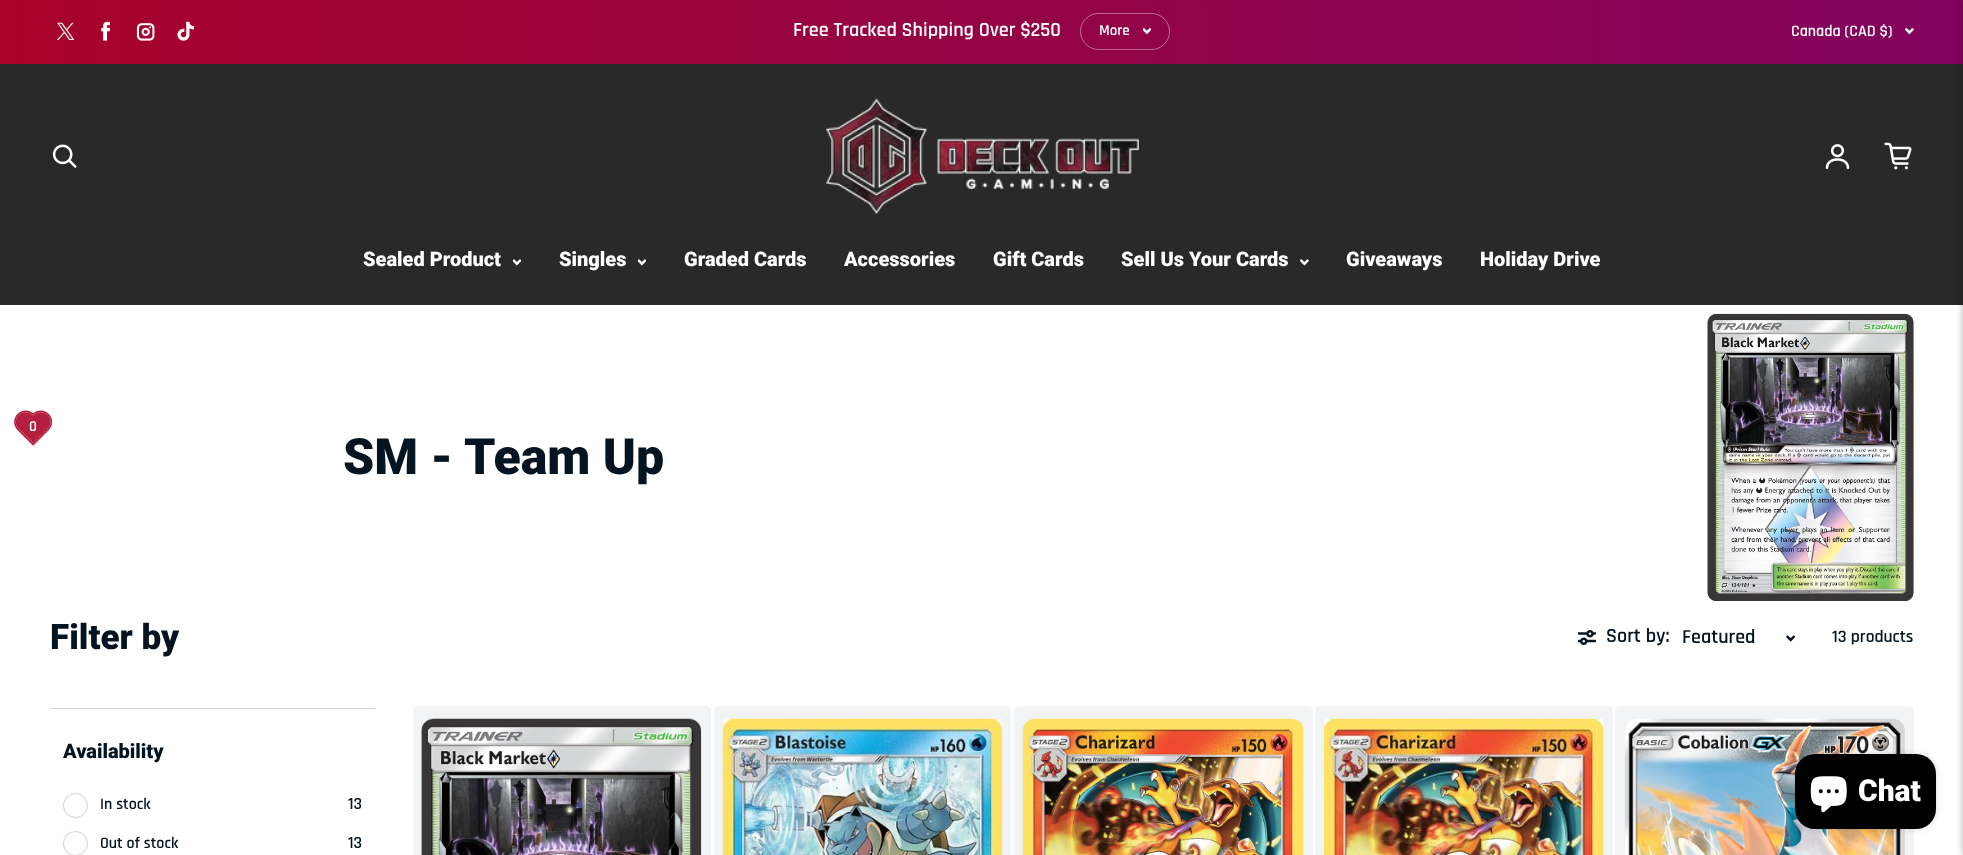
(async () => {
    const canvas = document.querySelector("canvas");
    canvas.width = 1963;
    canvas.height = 855;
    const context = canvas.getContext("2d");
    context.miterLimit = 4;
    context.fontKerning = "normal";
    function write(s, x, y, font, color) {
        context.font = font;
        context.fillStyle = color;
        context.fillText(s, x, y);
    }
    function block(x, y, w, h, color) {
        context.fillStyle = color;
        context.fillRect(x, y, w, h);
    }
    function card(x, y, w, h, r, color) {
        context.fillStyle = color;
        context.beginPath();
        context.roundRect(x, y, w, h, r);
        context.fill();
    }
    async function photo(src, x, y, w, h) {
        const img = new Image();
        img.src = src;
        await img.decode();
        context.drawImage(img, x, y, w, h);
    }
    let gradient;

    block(0, 0, 1963, 855, "rgb(255, 255, 255)");
    gradient = context.createLinearGradient(0, 428, 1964, 427);
    gradient.addColorStop(0, "rgb(168, 3, 42)");
    gradient.addColorStop(1, "rgb(130, 3, 95)");
    context.fillStyle = gradient;
    context.fillRect(0, 0, 1963, 64);
    await photo("media/1.png", 57, 22, 18, 18);
    await photo("media/2.png", 101, 21, 9, 20);
    await photo("media/3.png", 136, 23, 19, 18);
    await photo("media/4.png", 177, 21, 17, 20);
    write("Free Tracked Shipping Over $250", 793, 36, "600 20.1px Rajdhani", "rgb(255, 255, 255)");
    context.beginPath();
    context.roundRect(1080.5, 13.5, 89, 36, 18);
    context.strokeStyle = "rgba(255, 255, 255, 0.4)";
    context.stroke();
    write("More", 1099, 35, "600 15px Rajdhani", "rgb(255, 255, 255)");
    await photo("media/5.png", 1143, 28, 8, 7);
    write("Canada (CAD $)", 1791, 36, "600 16px Rajdhani", "rgb(255, 255, 255)");
    await photo("media/6.png", 1905, 28, 9, 7);
    block(0, 64, 1963, 241, "rgb(41, 41, 41)");
    await photo("media/7.png", 52, 144, 25, 24);
    await photo("media/8.png", 826, 98, 313, 116);
    await photo("media/9.png", 1825, 144, 25, 25);
    await photo("media/10.png", 1884, 142, 28, 28);
    write("Sealed Product", 363, 266, "900 20px Roboto", "rgb(255, 255, 255)");
    await photo("media/11.png", 513, 259, 8, 7);
    write("Singles", 559, 266, "900 20px Roboto", "rgb(255, 255, 255)");
    await photo("media/11.png", 638, 259, 8, 7);
    write("Graded Cards", 684, 266, "900 20px Roboto", "rgb(255, 255, 255)");
    write("Accessories", 844, 266, "900 20px Roboto", "rgb(255, 255, 255)");
    write("Gift Cards", 993, 266, "900 20px Roboto", "rgb(255, 255, 255)");
    write("Sell Us Your Cards", 1121, 266, "900 20px Roboto", "rgb(255, 255, 255)");
    await photo("media/12.png", 1300, 259, 9, 7);
    write("Giveaways", 1346, 266, "900 20px Roboto", "rgb(255, 255, 255)");
    write("Holiday Drive", 1480, 266, "900 20px Roboto", "rgb(255, 255, 255)");
    await photo("media/13.png", 14, 410, 39, 36);
    write("0", 29, 431, "600 15px Rajdhani", "rgb(255, 255, 255)");
    context.fillStyle = "rgba(0, 0, 0, 0.5)";
    context.filter = "blur(4.5px)";
    context.beginPath();
    context.rect(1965, 0, 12, 855);
    context.fill();
    context.filter = "none";
    write("SM - Team Up", 343, 474, "900 50px Roboto", "rgb(4, 20, 33)");
    await photo("media/14.png", 1707, 313, 207, 288);
    write("Filter by", 50, 649, "900 35px Roboto", "rgb(4, 20, 33)");
    block(50, 708, 325, 1, "rgb(205, 208, 211)");
    write("Availability", 63, 758, "900 20px Roboto", "rgb(4, 20, 33)");
    context.beginPath();
    context.arc(75.5, 805.5, 12, 0, Math.PI * 2);
    context.strokeStyle = "rgb(205, 208, 211)";
    context.stroke();
    write("In stock", 100, 809, "600 16px Rajdhani", "rgb(4, 20, 33)");
    write("13", 348, 809, "600 17px Rajdhani", "rgb(4, 20, 33)");
    context.beginPath();
    context.arc(75.5, 843.5, 12, 0, Math.PI * 2);
    context.stroke();
    write("Out of stock", 100, 848, "600 16px Rajdhani", "rgb(4, 20, 33)");
    write("13", 348, 848, "600 17px Rajdhani", "rgb(4, 20, 33)");
    await photo("media/15.png", 1578, 630, 18, 15);
    write("Sort by:", 1606, 642, "600 20.1px Rajdhani", "rgb(4, 20, 33)");
    write("Featured", 1682, 643, "600 20px Rajdhani", "rgb(4, 20, 33)");
    await photo("media/16.png", 1786, 635, 9, 7);
    write("13 products", 1832, 642, "600 17.5px Rajdhani", "rgb(4, 20, 33)");
    card(413, 706, 298, 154, 5, "rgb(242, 243, 244)");
    await photo("media/17.png", 421, 718, 281, 137);
    card(714, 706, 297, 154, 5, "rgb(242, 243, 244)");
    await photo("media/18.png", 722, 718, 281, 137);
    card(1014, 706, 299, 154, 5, "rgb(242, 243, 244)");
    await photo("media/19.png", 1022, 718, 282, 137);
    card(1315, 706, 298, 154, 5, "rgb(242, 243, 244)");
    await photo("media/20.png", 1324, 718, 280, 137);
    card(1615, 706, 299, 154, 5, "rgb(242, 243, 244)");
    await photo("media/21.png", 1625, 718, 280, 137);
    context.fillStyle = "rgba(0, 0, 0, 0.15)";
    context.filter = "blur(3px)";
    context.beginPath();
    context.roundRect(1795, 754, 141, 75, 20);
    context.fill();
    context.filter = "none";
    card(1795, 754, 141, 75, 20, "rgb(0, 0, 0)");
    await photo("media/22.png", 1810, 776, 37, 37);
    write("Chat", 1858, 801, "900 30px Roboto", "rgb(255, 255, 255)");
})();
